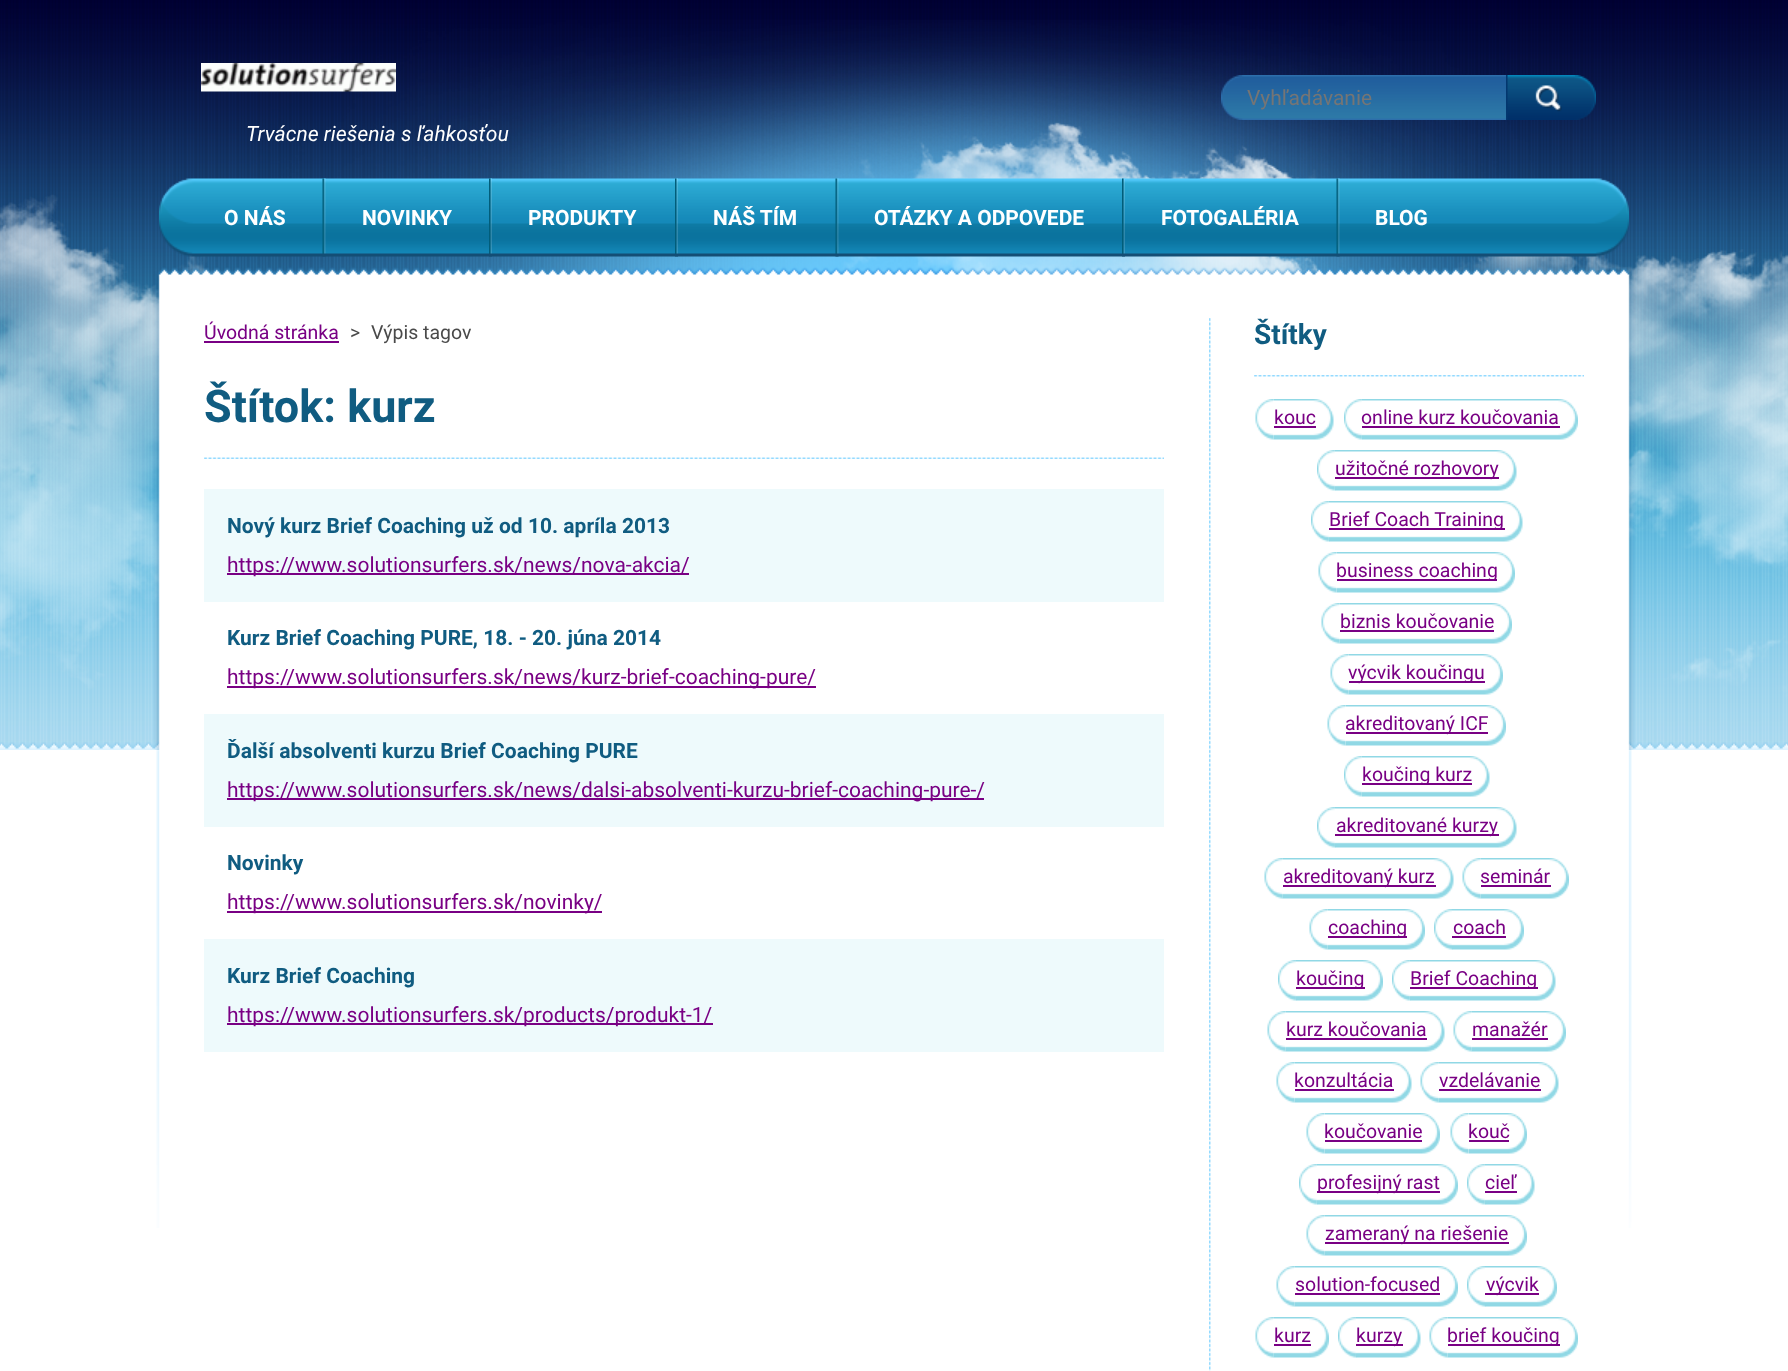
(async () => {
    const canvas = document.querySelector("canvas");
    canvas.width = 1788;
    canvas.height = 1371;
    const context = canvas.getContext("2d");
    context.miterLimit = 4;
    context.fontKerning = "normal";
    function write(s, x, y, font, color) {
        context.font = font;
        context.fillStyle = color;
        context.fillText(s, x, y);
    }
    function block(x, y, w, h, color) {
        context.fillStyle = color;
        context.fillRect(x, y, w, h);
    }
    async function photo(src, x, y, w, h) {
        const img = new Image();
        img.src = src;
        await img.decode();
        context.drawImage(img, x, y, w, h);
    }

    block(0, 0, 1788, 1371, "rgb(255, 255, 255)");
    await photo("media/1.png", 0, 0, 1788, 749);
    await photo("media/2.png", 0, 20, 1788, 730);
    await photo("media/3.png", 1221, 75, 285, 45);
    write("Vyhľadávanie", 1247, 105, "21px Roboto", "rgb(117, 117, 117)");
    await photo("media/4.png", 1506, 75, 90, 45);
    await photo("media/5.png", 201, 63, 195, 29);
    write("Trvácne riešenia s ľahkosťou", 246, 141, "italic 21px Roboto", "rgb(255, 255, 255)");
    await photo("media/6.png", 159, 178, 1470, 79);
    write("O NÁS", 224, 225, "bold 21px Roboto", "rgb(255, 255, 255)");
    await photo("media/7.png", 322, 178, 4, 79);
    write("NOVINKY", 362, 225, "bold 21px Roboto", "rgb(255, 255, 255)");
    await photo("media/8.png", 489, 178, 3, 79);
    write("PRODUKTY", 528, 225, "bold 21px Roboto", "rgb(255, 255, 255)");
    await photo("media/9.png", 675, 178, 3, 79);
    write("NÁŠ TÍM", 713, 225, "bold 21px Roboto", "rgb(255, 255, 255)");
    await photo("media/10.png", 835, 178, 4, 79);
    write("OTÁZKY A ODPOVEDE", 874, 225, "bold 21px Roboto", "rgb(255, 255, 255)");
    await photo("media/11.png", 1122, 178, 3, 79);
    write("FOTOGALÉRIA", 1161, 225, "bold 21px Roboto", "rgb(255, 255, 255)");
    await photo("media/12.png", 1336, 178, 4, 79);
    write("BLOG", 1375, 225, "bold 21px Roboto", "rgb(255, 255, 255)");
    await photo("media/13.png", 156, 750, 1476, 478);
    await photo("media/14.png", 1209, 318, 2, 1053);
    write("Úvodná stránka", 204, 339, "19.5px Roboto", "rgb(121, 0, 132)");
    block(204, 341, 135, 2, "rgb(121, 0, 132)");
    write(">", 350, 339, "19.5px Roboto", "rgb(74, 74, 74)");
    write("Výpis tagov", 371, 339, "19.5px Roboto", "rgb(74, 74, 74)");
    await photo("media/15.png", 204, 457, 960, 2);
    write("Štítok: kurz", 204, 422, "bold 45px Roboto", "rgb(16, 92, 129)");
    block(204, 489, 960, 113, "rgb(238, 250, 252)");
    write("Nový kurz Brief Coaching už od 10. apríla 2013", 227, 533, "bold 21px Roboto", "rgb(16, 92, 129)");
    block(227, 573, 462, 2, "rgb(121, 0, 132)");
    write("https://www.solutionsurfers.sk/news/nova-akcia/", 227, 572, "21px Roboto", "rgb(121, 0, 132)");
    write("Kurz Brief Coaching PURE, 18. - 20. júna 2014", 227, 645, "bold 21px Roboto", "rgb(16, 92, 129)");
    block(227, 686, 589, 2, "rgb(121, 0, 132)");
    write("https://www.solutionsurfers.sk/news/kurz-brief-coaching-pure/", 227, 684, "21px Roboto", "rgb(121, 0, 132)");
    block(204, 714, 960, 113, "rgb(238, 250, 252)");
    write("Ďalší absolventi kurzu Brief Coaching PURE", 227, 758, "bold 21px Roboto", "rgb(16, 92, 129)");
    block(227, 798, 757, 2, "rgb(121, 0, 132)");
    write("https://www.solutionsurfers.sk/news/dalsi-absolventi-kurzu-brief-coaching-pure-/", 227, 797, "21px Roboto", "rgb(121, 0, 132)");
    write("Novinky", 227, 870, "bold 21px Roboto", "rgb(16, 92, 129)");
    block(227, 911, 375, 2, "rgb(121, 0, 132)");
    write("https://www.solutionsurfers.sk/novinky/", 227, 909, "21px Roboto", "rgb(121, 0, 132)");
    block(204, 939, 960, 113, "rgb(238, 250, 252)");
    write("Kurz Brief Coaching", 227, 983, "bold 21px Roboto", "rgb(16, 92, 129)");
    block(227, 1023, 486, 2, "rgb(121, 0, 132)");
    write("https://www.solutionsurfers.sk/products/produkt-1/", 227, 1022, "21px Roboto", "rgb(121, 0, 132)");
    await photo("media/16.png", 1254, 375, 330, 2);
    write("Štítky", 1254, 344, "bold 28px Roboto", "rgb(16, 92, 129)");
    await photo("media/17.png", 1255, 399, 19, 41);
    await photo("media/18.png", 1273, 399, 61, 41);
    write("kouc", 1274, 424, "19.5px Roboto", "rgb(121, 0, 132)");
    block(1274, 426, 42, 2, "rgb(121, 0, 132)");
    await photo("media/19.png", 1344, 399, 19, 41);
    await photo("media/20.png", 1362, 399, 216, 41);
    write("online kurz koučovania", 1361, 424, "19.5px Roboto", "rgb(121, 0, 132)");
    block(1362, 426, 198, 2, "rgb(121, 0, 132)");
    await photo("media/21.png", 1317, 450, 19, 41);
    await photo("media/22.png", 1335, 450, 182, 41);
    block(1335, 477, 164, 2, "rgb(121, 0, 132)");
    write("užitočné rozhovory", 1335, 475, "19.5px Roboto", "rgb(121, 0, 132)");
    await photo("media/23.png", 1311, 501, 19, 41);
    await photo("media/24.png", 1329, 501, 194, 41);
    block(1329, 528, 176, 2, "rgb(121, 0, 132)");
    write("Brief Coach Training", 1329, 526, "19.5px Roboto", "rgb(121, 0, 132)");
    await photo("media/25.png", 1318, 552, 19, 41);
    await photo("media/26.png", 1336, 552, 179, 41);
    block(1337, 579, 160, 2, "rgb(121, 0, 132)");
    write("business coaching", 1336, 577, "19.5px Roboto", "rgb(121, 0, 132)");
    await photo("media/27.png", 1321, 603, 19, 41);
    await photo("media/28.png", 1339, 603, 173, 41);
    write("biznis koučovanie", 1340, 628, "19.5px Roboto", "rgb(121, 0, 132)");
    block(1340, 630, 154, 2, "rgb(121, 0, 132)");
    await photo("media/17.png", 1330, 654, 19, 41);
    await photo("media/29.png", 1348, 654, 155, 41);
    block(1349, 681, 136, 2, "rgb(121, 0, 132)");
    write("výcvik koučingu", 1348, 679, "19.5px Roboto", "rgb(121, 0, 132)");
    await photo("media/25.png", 1327, 705, 19, 41);
    await photo("media/30.png", 1345, 705, 161, 41);
    block(1346, 732, 142, 2, "rgb(121, 0, 132)");
    write("akreditovaný ICF", 1345, 730, "19.5px Roboto", "rgb(121, 0, 132)");
    await photo("media/31.png", 1344, 756, 19, 41);
    await photo("media/32.png", 1362, 756, 128, 41);
    block(1362, 783, 110, 2, "rgb(121, 0, 132)");
    write("koučing kurz", 1362, 781, "19.5px Roboto", "rgb(121, 0, 132)");
    await photo("media/33.png", 1317, 807, 19, 41);
    await photo("media/34.png", 1335, 807, 182, 41);
    block(1335, 834, 164, 2, "rgb(121, 0, 132)");
    write("akreditované kurzy", 1336, 832, "19.5px Roboto", "rgb(121, 0, 132)");
    await photo("media/35.png", 1264, 858, 19, 41);
    await photo("media/36.png", 1282, 858, 172, 41);
    block(1283, 885, 153, 2, "rgb(121, 0, 132)");
    write("akreditovaný kurz", 1283, 883, "19.5px Roboto", "rgb(121, 0, 132)");
    await photo("media/37.png", 1462, 858, 19, 41);
    await photo("media/38.png", 1480, 858, 89, 41);
    write("seminár", 1480, 883, "19.5px Roboto", "rgb(121, 0, 132)");
    block(1481, 885, 70, 2, "rgb(121, 0, 132)");
    await photo("media/27.png", 1309, 909, 19, 41);
    await photo("media/39.png", 1327, 909, 98, 41);
    block(1328, 936, 79, 2, "rgb(121, 0, 132)");
    write("coaching", 1328, 934, "19.5px Roboto", "rgb(121, 0, 132)");
    await photo("media/40.png", 1434, 909, 19, 41);
    await photo("media/41.png", 1452, 909, 72, 41);
    write("coach", 1453, 934, "19.5px Roboto", "rgb(121, 0, 132)");
    block(1452, 936, 54, 2, "rgb(121, 0, 132)");
    await photo("media/42.png", 1278, 960, 19, 41);
    await photo("media/43.png", 1296, 960, 87, 41);
    block(1296, 987, 69, 2, "rgb(121, 0, 132)");
    write("koučing", 1296, 985, "19.5px Roboto", "rgb(121, 0, 132)");
    await photo("media/44.png", 1392, 960, 19, 41);
    await photo("media/45.png", 1410, 960, 146, 41);
    block(1410, 987, 128, 2, "rgb(121, 0, 132)");
    write("Brief Coaching", 1410, 985, "19.5px Roboto", "rgb(121, 0, 132)");
    await photo("media/46.png", 1267, 1011, 19, 41);
    await photo("media/47.png", 1285, 1011, 160, 41);
    write("kurz koučovania", 1286, 1036, "19.5px Roboto", "rgb(121, 0, 132)");
    block(1286, 1038, 141, 2, "rgb(121, 0, 132)");
    await photo("media/48.png", 1453, 1011, 19, 41);
    await photo("media/49.png", 1471, 1011, 95, 41);
    write("manažér", 1472, 1036, "19.5px Roboto", "rgb(121, 0, 132)");
    block(1472, 1038, 76, 2, "rgb(121, 0, 132)");
    await photo("media/50.png", 1276, 1062, 19, 41);
    await photo("media/51.png", 1294, 1062, 118, 41);
    write("konzultácia", 1294, 1087, "19.5px Roboto", "rgb(121, 0, 132)");
    block(1295, 1089, 99, 2, "rgb(121, 0, 132)");
    await photo("media/52.png", 1420, 1062, 19, 41);
    await photo("media/53.png", 1438, 1062, 121, 41);
    write("vzdelávanie", 1439, 1087, "19.5px Roboto", "rgb(121, 0, 132)");
    block(1439, 1089, 102, 2, "rgb(121, 0, 132)");
    await photo("media/54.png", 1306, 1113, 19, 41);
    await photo("media/55.png", 1324, 1113, 116, 41);
    write("koučovanie", 1324, 1138, "19.5px Roboto", "rgb(121, 0, 132)");
    block(1325, 1140, 97, 2, "rgb(121, 0, 132)");
    await photo("media/56.png", 1450, 1113, 19, 41);
    await photo("media/57.png", 1468, 1113, 59, 41);
    write("kouč", 1468, 1138, "19.5px Roboto", "rgb(121, 0, 132)");
    block(1469, 1140, 40, 2, "rgb(121, 0, 132)");
    await photo("media/19.png", 1299, 1164, 19, 41);
    await photo("media/58.png", 1317, 1164, 141, 41);
    block(1317, 1191, 123, 2, "rgb(121, 0, 132)");
    write("profesijný rast", 1317, 1189, "19.5px Roboto", "rgb(121, 0, 132)");
    await photo("media/19.png", 1467, 1164, 19, 41);
    await photo("media/59.png", 1485, 1164, 50, 41);
    write("cieľ", 1485, 1189, "19.5px Roboto", "rgb(121, 0, 132)");
    block(1485, 1191, 32, 2, "rgb(121, 0, 132)");
    await photo("media/60.png", 1306, 1215, 19, 41);
    await photo("media/61.png", 1324, 1215, 203, 41);
    block(1325, 1242, 184, 2, "rgb(121, 0, 132)");
    write("zameraný na riešenie", 1325, 1240, "19.5px Roboto", "rgb(121, 0, 132)");
    await photo("media/27.png", 1276, 1266, 19, 41);
    await photo("media/62.png", 1294, 1266, 164, 41);
    write("solution-focused", 1295, 1291, "19.5px Roboto", "rgb(121, 0, 132)");
    block(1295, 1293, 145, 2, "rgb(121, 0, 132)");
    await photo("media/63.png", 1467, 1266, 19, 41);
    await photo("media/41.png", 1485, 1266, 72, 41);
    block(1485, 1293, 54, 2, "rgb(121, 0, 132)");
    write("výcvik", 1486, 1291, "19.5px Roboto", "rgb(121, 0, 132)");
    await photo("media/48.png", 1255, 1317, 19, 41);
    await photo("media/64.png", 1273, 1317, 56, 41);
    write("kurz", 1274, 1342, "19.5px Roboto", "rgb(121, 0, 132)");
    block(1274, 1344, 37, 2, "rgb(121, 0, 132)");
    await photo("media/65.png", 1338, 1317, 19, 41);
    await photo("media/66.png", 1356, 1317, 65, 41);
    block(1356, 1344, 47, 2, "rgb(121, 0, 132)");
    write("kurzy", 1356, 1342, "19.5px Roboto", "rgb(121, 0, 132)");
    await photo("media/17.png", 1429, 1317, 19, 41);
    await photo("media/67.png", 1447, 1317, 131, 41);
    block(1448, 1344, 112, 2, "rgb(121, 0, 132)");
    write("brief koučing", 1447, 1342, "19.5px Roboto", "rgb(121, 0, 132)");
})();
